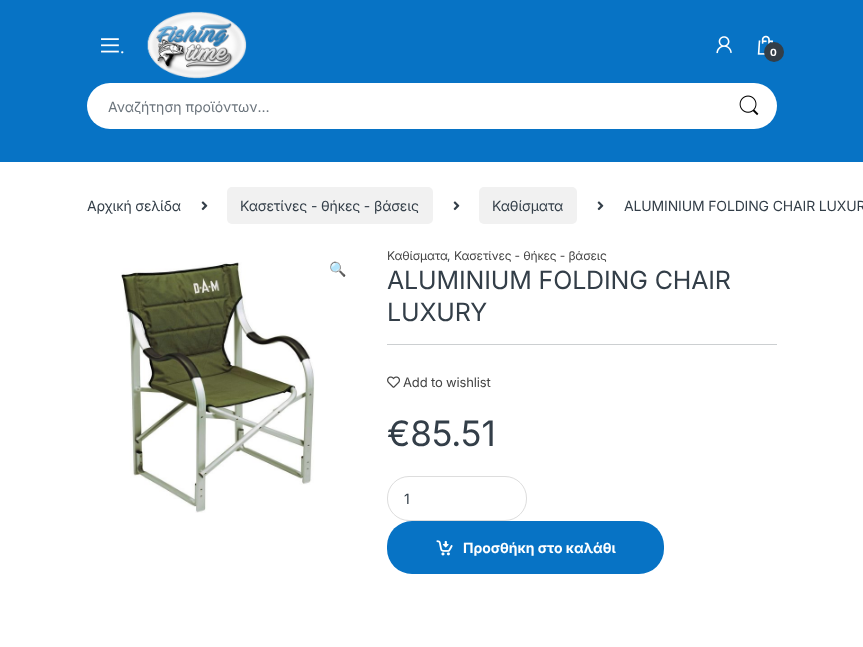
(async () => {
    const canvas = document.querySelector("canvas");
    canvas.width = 863;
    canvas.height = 647;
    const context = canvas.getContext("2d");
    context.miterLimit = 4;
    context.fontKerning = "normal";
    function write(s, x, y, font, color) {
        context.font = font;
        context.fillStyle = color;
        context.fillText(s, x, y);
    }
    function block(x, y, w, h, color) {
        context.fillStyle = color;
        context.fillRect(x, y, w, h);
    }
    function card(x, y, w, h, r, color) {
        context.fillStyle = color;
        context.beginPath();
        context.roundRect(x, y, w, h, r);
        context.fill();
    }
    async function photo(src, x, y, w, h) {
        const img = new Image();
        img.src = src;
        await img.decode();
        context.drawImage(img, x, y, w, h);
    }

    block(0, 0, 863, 647, "rgb(255, 255, 255)");
    block(0, 0, 863, 162, "rgb(7, 115, 197)");
    await photo("media/1.png", 101, 38, 18, 15);
    write(".", 120, 53, "18px Liberation Serif", "rgb(255, 255, 255)");
    await photo("media/2.png", 147, 11, 100, 68);
    await photo("media/3.png", 716, 36, 16, 18);
    await photo("media/4.png", 757, 35, 17, 20);
    context.fillStyle = "rgb(51, 62, 72)";
    context.beginPath();
    context.arc(774, 52, 10, 0, Math.PI * 2);
    context.fill();
    context.letterSpacing = "-0.15px";
    write("0", 770, 56, "bold 10px Inter", "rgb(255, 255, 255)");
    card(87, 83, 690, 46, 23, "rgb(255, 255, 255)");
    context.letterSpacing = "0px";
    write("Αναζήτηση προϊόντων…", 108, 112, "14px Inter", "rgb(108, 117, 125)");
    await photo("media/5.png", 739, 95, 20, 21);
    context.letterSpacing = "-0.15px";
    write("Αρχική σελίδα", 87, 211, "14px Inter", "rgb(51, 62, 72)");
    await photo("media/6.png", 201, 201, 7, 10);
    card(227, 187, 206, 37, 5, "rgb(241, 241, 241)");
    write("Κασετίνες - θήκες - βάσεις", 240, 211, "14px Inter", "rgb(51, 62, 72)");
    await photo("media/6.png", 453, 201, 7, 10);
    card(479, 187, 98, 37, 5, "rgb(241, 241, 241)");
    write("Καθίσματα", 492, 211, "14px Inter", "rgb(51, 62, 72)");
    await photo("media/6.png", 597, 201, 7, 10);
    write("ALUMINIUM FOLDING CHAIR LUXUR", 624, 211, "14px Inter", "rgb(51, 62, 72)");
    await photo("media/7.png", 121, 262, 194, 251);
    write("🔍", 329, 274, "14px Noto Color Emoji", "rgb(51, 62, 72)");
    write("Καθίσματα", 387, 260, "12px Inter", "rgb(68, 68, 68)");
    write(",", 447, 260, "12px Inter", "rgb(51, 62, 72)");
    write("Κασετίνες - θήκες - βάσεις", 454, 260, "12px Inter", "rgb(68, 68, 68)");
    write("ALUMINIUM FOLDING CHAIR", 387, 289, "25px Inter", "rgb(51, 62, 72)");
    write("LUXURY", 387, 321, "25px Inter", "rgb(51, 62, 72)");
    block(387, 344, 390, 1, "rgb(204, 207, 209)");
    await photo("media/8.png", 387, 376, 13, 12);
    write("Add to wishlist", 403, 387, "13px Inter", "rgb(68, 68, 68)");
    write("€85.51", 387, 446, "35px Inter", "rgb(51, 62, 72)");
    context.beginPath();
    context.roundRect(387.5, 476.5, 139, 44, 21.5);
    context.strokeStyle = "rgb(221, 221, 221)";
    context.stroke();
    context.letterSpacing = "0px";
    write("1", 404, 504, "14px Inter", "rgb(51, 62, 72)");
    card(387, 521, 277, 53, 25, "rgb(7, 115, 197)");
    await photo("media/9.png", 436, 540, 17, 16);
    write("Προσθήκη στο καλάθι", 463, 553, "bold 14px Inter", "rgb(255, 255, 255)");
})();
